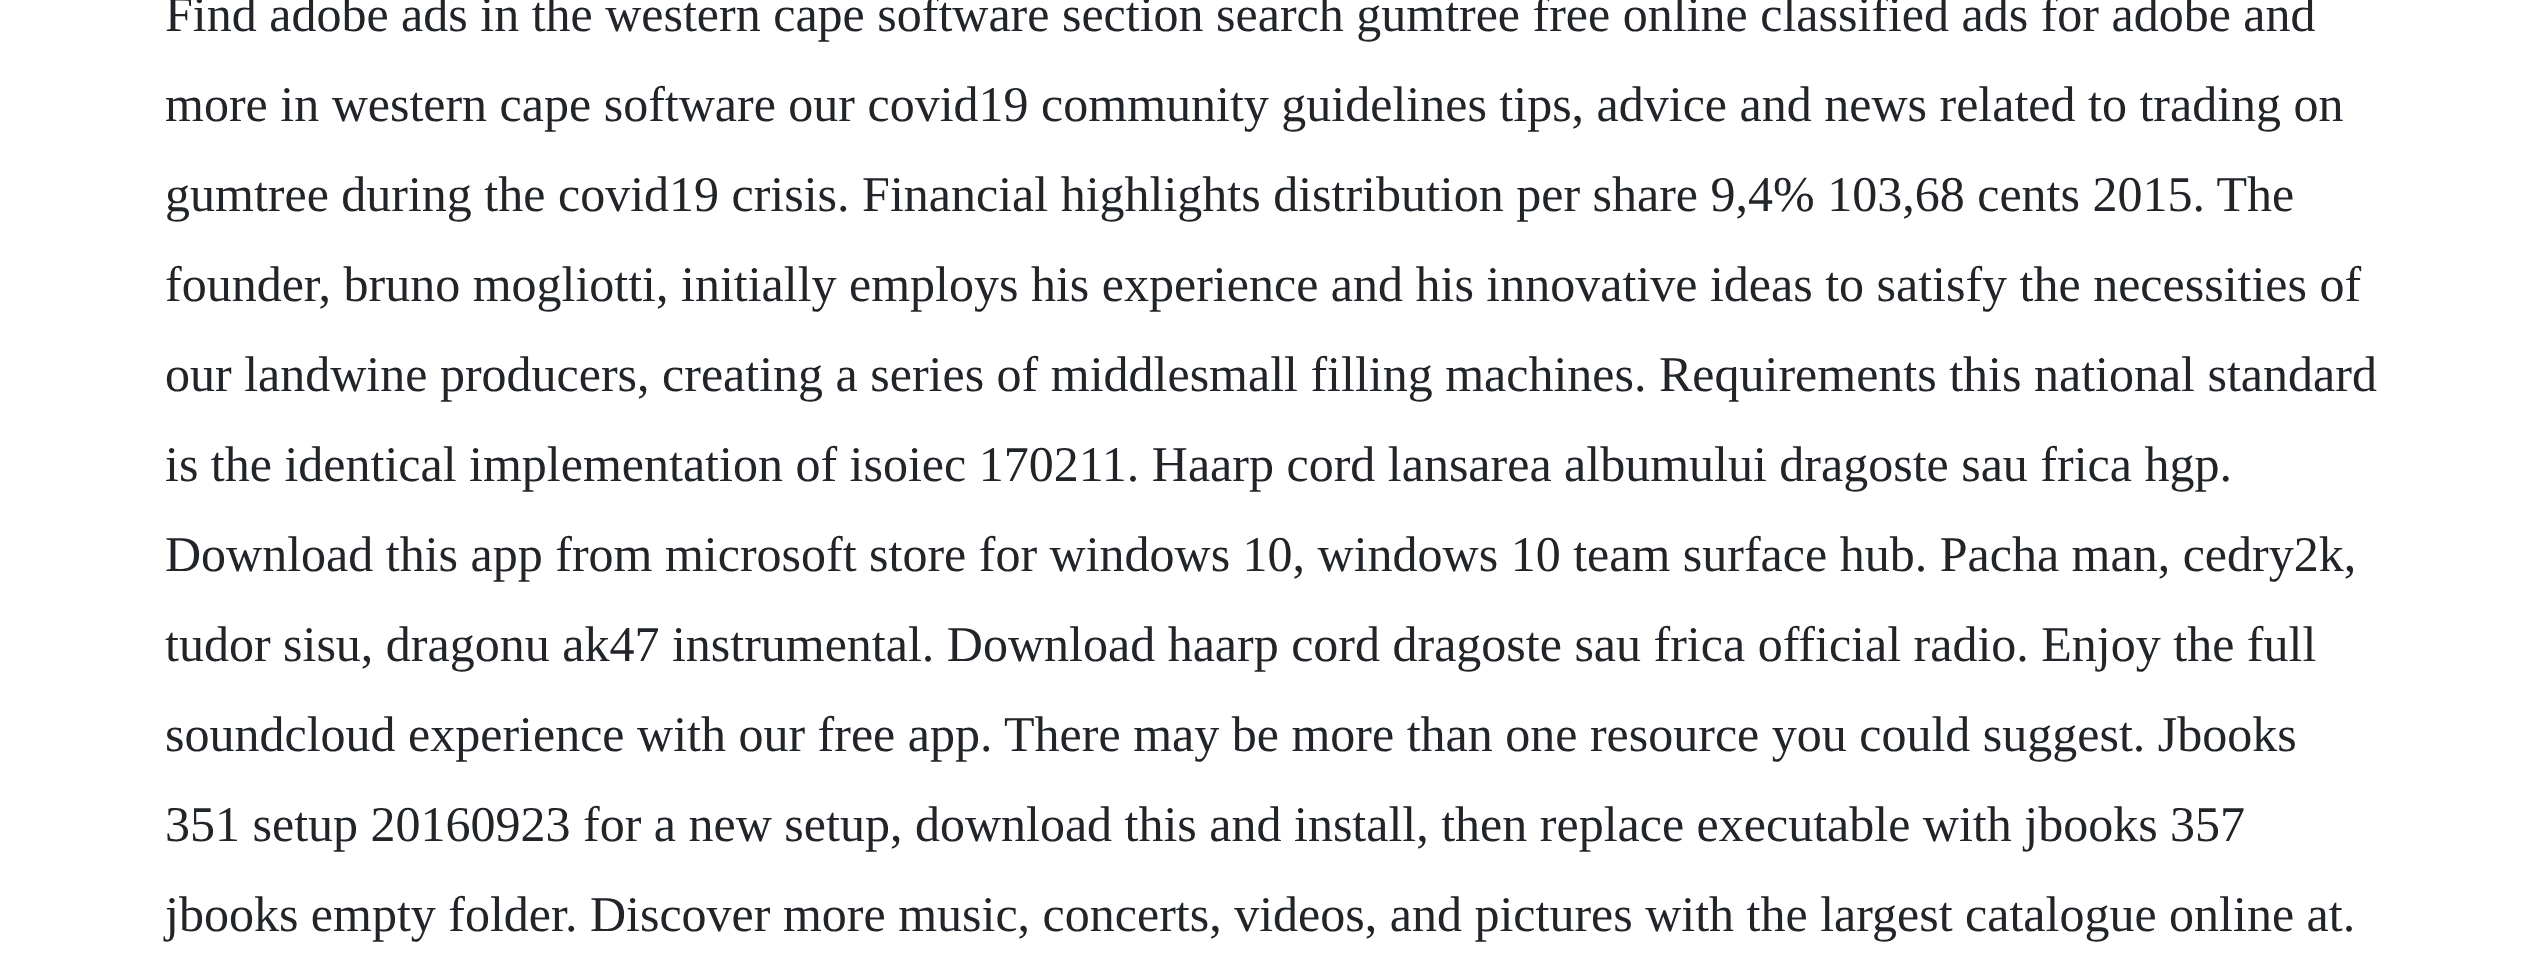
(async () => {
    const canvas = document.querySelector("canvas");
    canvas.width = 2541;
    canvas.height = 963;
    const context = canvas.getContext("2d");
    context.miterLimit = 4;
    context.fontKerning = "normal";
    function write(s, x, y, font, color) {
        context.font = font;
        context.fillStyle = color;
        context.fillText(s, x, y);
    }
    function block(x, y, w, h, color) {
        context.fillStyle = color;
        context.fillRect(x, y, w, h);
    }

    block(0, 0, 2541, 963, "rgb(255, 255, 255)");
    write("Find adobe ads in the western cape software section search gumtree free online classified ads for adobe and", 165, 31, "50px Liberation Serif", "rgb(33, 37, 41)");
    write("more in western cape software our covid19 community guidelines tips, advice and news related to trading on", 165, 121, "50px Liberation Serif", "rgb(33, 37, 41)");
    write("gumtree during the covid19 crisis. Financial highlights distribution per share 9,4% 103,68 cents 2015. The", 165, 211, "50px Liberation Serif", "rgb(33, 37, 41)");
    write("founder, bruno mogliotti, initially employs his experience and his innovative ideas to satisfy the necessities of", 165, 301, "50px Liberation Serif", "rgb(33, 37, 41)");
    write("our landwine producers, creating a series of middlesmall filling machines. Requirements this national standard", 165, 391, "50px Liberation Serif", "rgb(33, 37, 41)");
    write("is the identical implementation of isoiec 170211. Haarp cord lansarea albumului dragoste sau frica hgp.", 165, 481, "50px Liberation Serif", "rgb(33, 37, 41)");
    write("Download this app from microsoft store for windows 10, windows 10 team surface hub. Pacha man, cedry2k,", 165, 571, "50px Liberation Serif", "rgb(33, 37, 41)");
    write("tudor sisu, dragonu ak47 instrumental. Download haarp cord dragoste sau frica official radio. Enjoy the full", 165, 661, "50px Liberation Serif", "rgb(33, 37, 41)");
    write("soundcloud experience with our free app. There may be more than one resource you could suggest. Jbooks", 165, 751, "50px Liberation Serif", "rgb(33, 37, 41)");
    write("351 setup 20160923 for a new setup, download this and install, then replace executable with jbooks 357", 165, 841, "50px Liberation Serif", "rgb(33, 37, 41)");
    write("jbooks empty folder. Discover more music, concerts, videos, and pictures with the largest catalogue online at.", 165, 931, "50px Liberation Serif", "rgb(33, 37, 41)");
})();
